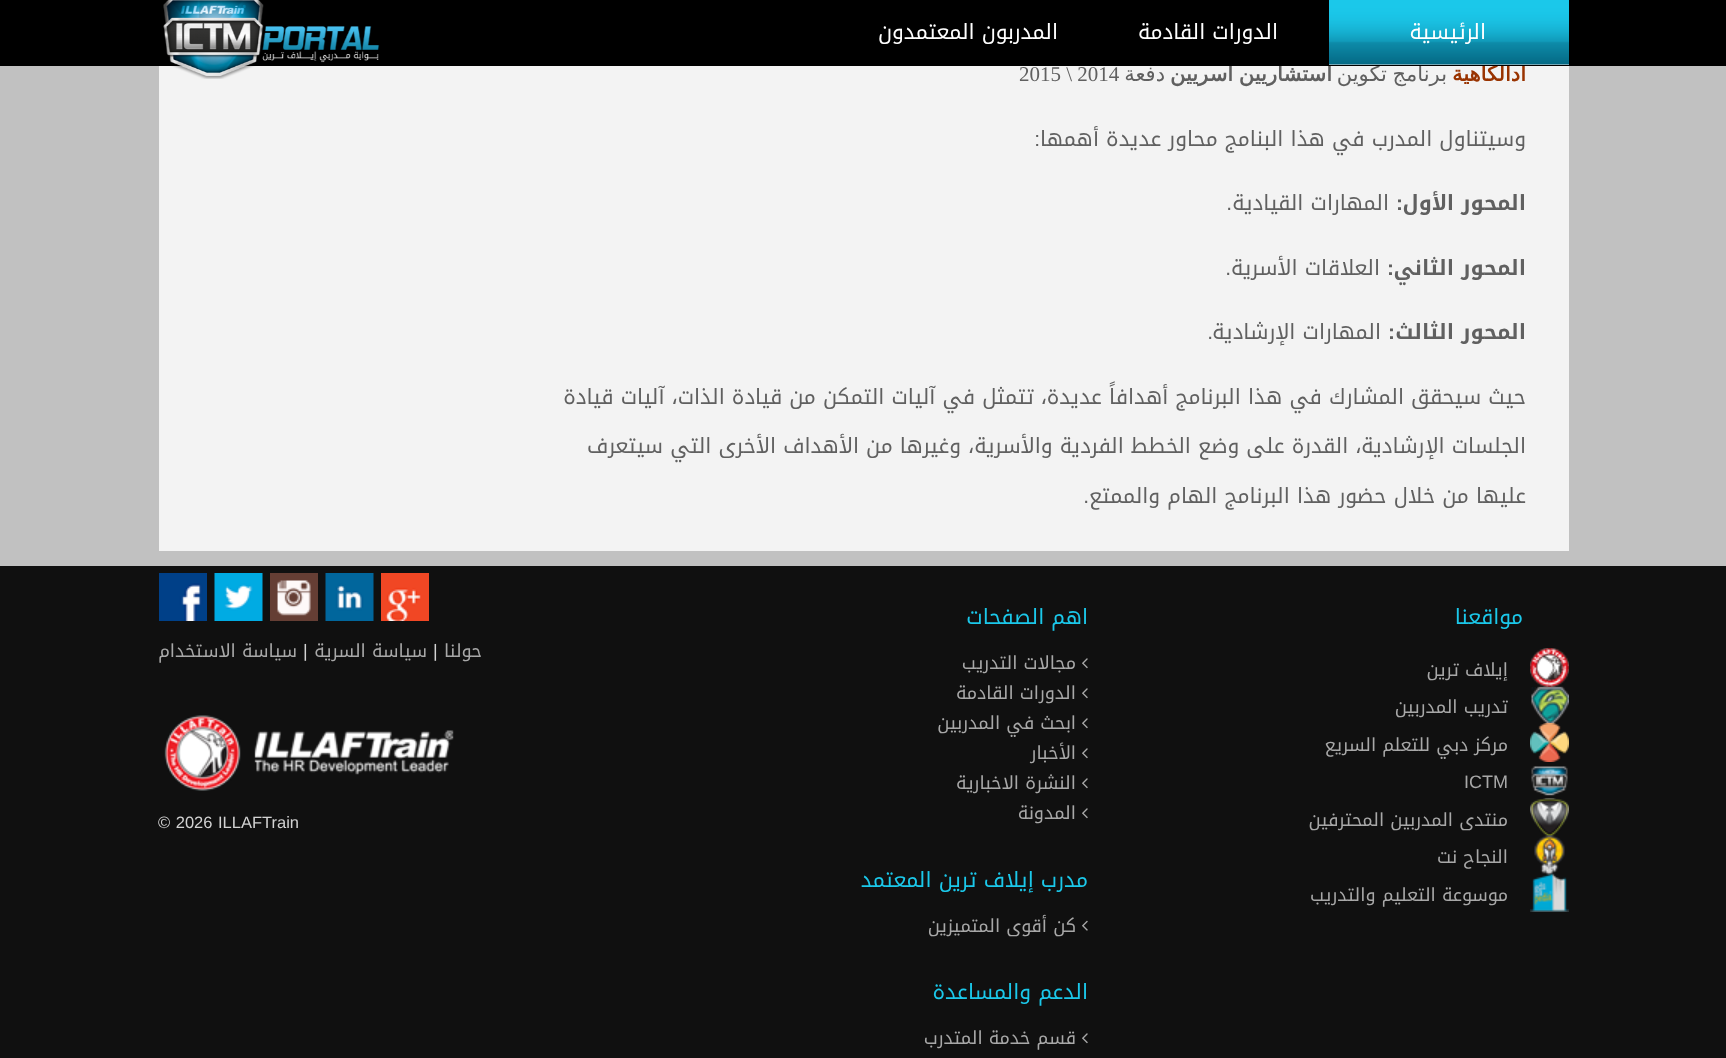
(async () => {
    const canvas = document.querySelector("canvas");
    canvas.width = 1726;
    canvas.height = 1058;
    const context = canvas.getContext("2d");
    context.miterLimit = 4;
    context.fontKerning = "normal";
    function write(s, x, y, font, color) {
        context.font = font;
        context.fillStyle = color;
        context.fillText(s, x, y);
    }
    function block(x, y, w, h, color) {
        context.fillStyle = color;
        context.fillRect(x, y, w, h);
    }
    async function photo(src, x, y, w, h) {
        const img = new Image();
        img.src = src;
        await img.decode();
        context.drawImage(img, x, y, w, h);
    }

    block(0, 0, 1726, 1058, "rgb(193, 193, 193)");
    block(159, 66, 1410, 485, "rgb(243, 243, 243)");
    context.direction = "rtl";
    write("أدالكاهية", 1526, 81, "bold 21px DejaVu Sans", "rgb(153, 51, 0)");
    context.wordSpacing = "-1px";
    write("برنامج تكوين", 1447, 81, "21px DejaVu Sans", "rgb(96, 96, 96)");
    write("استشاريين أسريين", 1332, 81, "bold 21px DejaVu Sans", "rgb(96, 96, 96)");
    block(0, 0, 1726, 66, "rgb(0, 0, 0)");
    block(1329, 64, 240, 1, "rgb(229, 229, 229)");
    await photo("media/1.png", 1329, 0, 240, 65);
    context.wordSpacing = "0px";
    write("الرئيسية", 1486, 39, "21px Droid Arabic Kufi", "rgb(255, 255, 255)");
    write("الدورات القادمة", 1278, 39, "21px Droid Arabic Kufi", "rgb(255, 255, 255)");
    write("المدربون المعتمدون", 1058, 39, "21px Droid Arabic Kufi", "rgb(255, 255, 255)");
    await photo("media/2.png", 163, 0, 217, 79);
    write("دفعة", 1165, 81, "21px DejaVu Sans", "rgb(96, 96, 96)");
    context.direction = "ltr";
    write("2015 \\ 2014", 1019, 81, "21px Liberation Serif", "rgb(96, 96, 96)");
    context.direction = "rtl";
    write("وسيتناول المدرب في هذا البنامج محاور عديدة أهمها", 1526, 146, "21px Droid Arabic Kufi", "rgb(96, 96, 96)");
    write(":", 1040, 146, "21px Liberation Sans", "rgb(96, 96, 96)");
    write("المحور الأول", 1526, 210, "bold 21px Droid Arabic Kufi", "rgb(96, 96, 96)");
    write(":", 1403, 210, "bold 21px Liberation Sans", "rgb(96, 96, 96)");
    write("المهارات القيادية", 1389, 210, "21px Droid Arabic Kufi", "rgb(96, 96, 96)");
    write(".", 1232, 210, "21px Liberation Sans", "rgb(96, 96, 96)");
    write("المحور الثاني", 1526, 275, "bold 21px Droid Arabic Kufi", "rgb(96, 96, 96)");
    write(":", 1394, 275, "bold 21px Liberation Sans", "rgb(96, 96, 96)");
    write("العلاقات الأسرية", 1380, 275, "21px Droid Arabic Kufi", "rgb(96, 96, 96)");
    write(".", 1231, 275, "21px Liberation Sans", "rgb(96, 96, 96)");
    write("المحور الثالث", 1526, 339, "bold 21px Droid Arabic Kufi", "rgb(96, 96, 96)");
    write(":", 1395, 339, "bold 21px Liberation Sans", "rgb(96, 96, 96)");
    write("المهارات الإرشادية", 1381, 339, "21px Droid Arabic Kufi", "rgb(96, 96, 96)");
    write(".", 1213, 339, "21px Liberation Sans", "rgb(96, 96, 96)");
    write("حيث سيحقق المشارك في هذا البرنامج أهدافاً عديدة، تتمثل في آليات التمكن من قيادة الذات، آليات قيادة", 1526, 404, "21px Droid Arabic Kufi", "rgb(96, 96, 96)");
    write("الجلسات الإرشادية، القدرة على وضع الخطط الفردية والأسرية، وغيرها من الأهداف الأخرى التي سيتعرف", 1526, 453, "21px Droid Arabic Kufi", "rgb(96, 96, 96)");
    write("عليها من خلال حضور هذا البرنامج الهام والممتع", 1526, 503, "21px Droid Arabic Kufi", "rgb(96, 96, 96)");
    write(".", 1089, 503, "21px Liberation Sans", "rgb(96, 96, 96)");
    block(0, 566, 1726, 492, "rgb(16, 16, 16)");
    write("مواقعنا", 1523, 624, "21px Droid Arabic Kufi", "rgb(27, 200, 234)");
    await photo("media/3.png", 1530, 648, 39, 39);
    write("إيلاف ترين", 1508, 676, "18px Droid Arabic Kufi", "rgb(168, 168, 168)");
    await photo("media/4.png", 1531, 686, 38, 39);
    write("تدريب المدربين", 1508, 713, "18px Droid Arabic Kufi", "rgb(168, 168, 168)");
    await photo("media/5.png", 1530, 723, 39, 39);
    write("مركز دبي للتعلم السريع", 1508, 751, "18px Droid Arabic Kufi", "rgb(168, 168, 168)");
    await photo("media/6.png", 1531, 766, 37, 30);
    context.direction = "ltr";
    write("ICTM", 1464, 788, "18px Liberation Sans", "rgb(168, 168, 168)");
    await photo("media/7.png", 1530, 798, 39, 39);
    context.direction = "rtl";
    write("منتدى المدربين المحترفين", 1508, 826, "18px Droid Arabic Kufi", "rgb(168, 168, 168)");
    await photo("media/8.png", 1534, 835, 31, 40);
    write("النجاح نت", 1508, 863, "18px Droid Arabic Kufi", "rgb(168, 168, 168)");
    await photo("media/9.png", 1530, 873, 39, 39);
    write("موسوعة التعليم والتدريب", 1508, 901, "18px Droid Arabic Kufi", "rgb(168, 168, 168)");
    write("اهم الصفحات", 1088, 624, "21px Droid Arabic Kufi", "rgb(27, 200, 234)");
    await photo("media/10.png", 1082, 658, 6, 11);
    write("مجالات التدريب", 1076, 669, "18px Droid Arabic Kufi", "rgb(168, 168, 168)");
    await photo("media/10.png", 1082, 688, 6, 11);
    write("الدورات القادمة", 1076, 699, "18px Droid Arabic Kufi", "rgb(168, 168, 168)");
    await photo("media/10.png", 1082, 718, 6, 11);
    write("ابحث في المدربين", 1076, 729, "18px Droid Arabic Kufi", "rgb(168, 168, 168)");
    await photo("media/10.png", 1082, 748, 6, 11);
    write("الأخبار", 1076, 759, "18px Droid Arabic Kufi", "rgb(168, 168, 168)");
    await photo("media/10.png", 1082, 778, 6, 11);
    write("النشرة الاخبارية", 1076, 789, "18px Droid Arabic Kufi", "rgb(168, 168, 168)");
    await photo("media/10.png", 1082, 808, 6, 11);
    write("المدونة", 1076, 819, "18px Droid Arabic Kufi", "rgb(168, 168, 168)");
    write("مدرب إيلاف ترين المعتمد", 1088, 887, "21px Droid Arabic Kufi", "rgb(27, 200, 234)");
    await photo("media/11.png", 1082, 920, 6, 11);
    write("كن أقوى المتميزين", 1076, 932, "18px Droid Arabic Kufi", "rgb(168, 168, 168)");
    write("الدعم والمساعدة", 1088, 999, "21px Droid Arabic Kufi", "rgb(27, 200, 234)");
    await photo("media/10.png", 1082, 1033, 6, 11);
    write("قسم خدمة المتدرب", 1076, 1044, "18px Droid Arabic Kufi", "rgb(168, 168, 168)");
    await photo("media/12.png", 381, 573, 48, 48);
    await photo("media/13.png", 325, 573, 49, 48);
    await photo("media/14.png", 270, 573, 48, 48);
    await photo("media/15.png", 214, 573, 49, 48);
    await photo("media/16.png", 159, 573, 48, 48);
    write("حولنا", 482, 657, "18px Droid Arabic Kufi", "rgb(168, 168, 168)");
    context.direction = "ltr";
    write("|", 433, 657, "18px Liberation Sans", "rgb(210, 210, 210)");
    context.direction = "rtl";
    write("سياسة السرية", 427, 657, "18px Droid Arabic Kufi", "rgb(168, 168, 168)");
    context.direction = "ltr";
    write("|", 303, 657, "18px Liberation Sans", "rgb(210, 210, 210)");
    context.direction = "rtl";
    write("سياسة الاستخدام", 297, 657, "18px Droid Arabic Kufi", "rgb(168, 168, 168)");
    await photo("media/17.png", 164, 715, 290, 76);
    context.wordSpacing = "1px";
    context.direction = "ltr";
    write("© 2026 ILLAFTrain", 158, 828, "16.5px Liberation Sans", "rgb(210, 210, 210)");
})();
